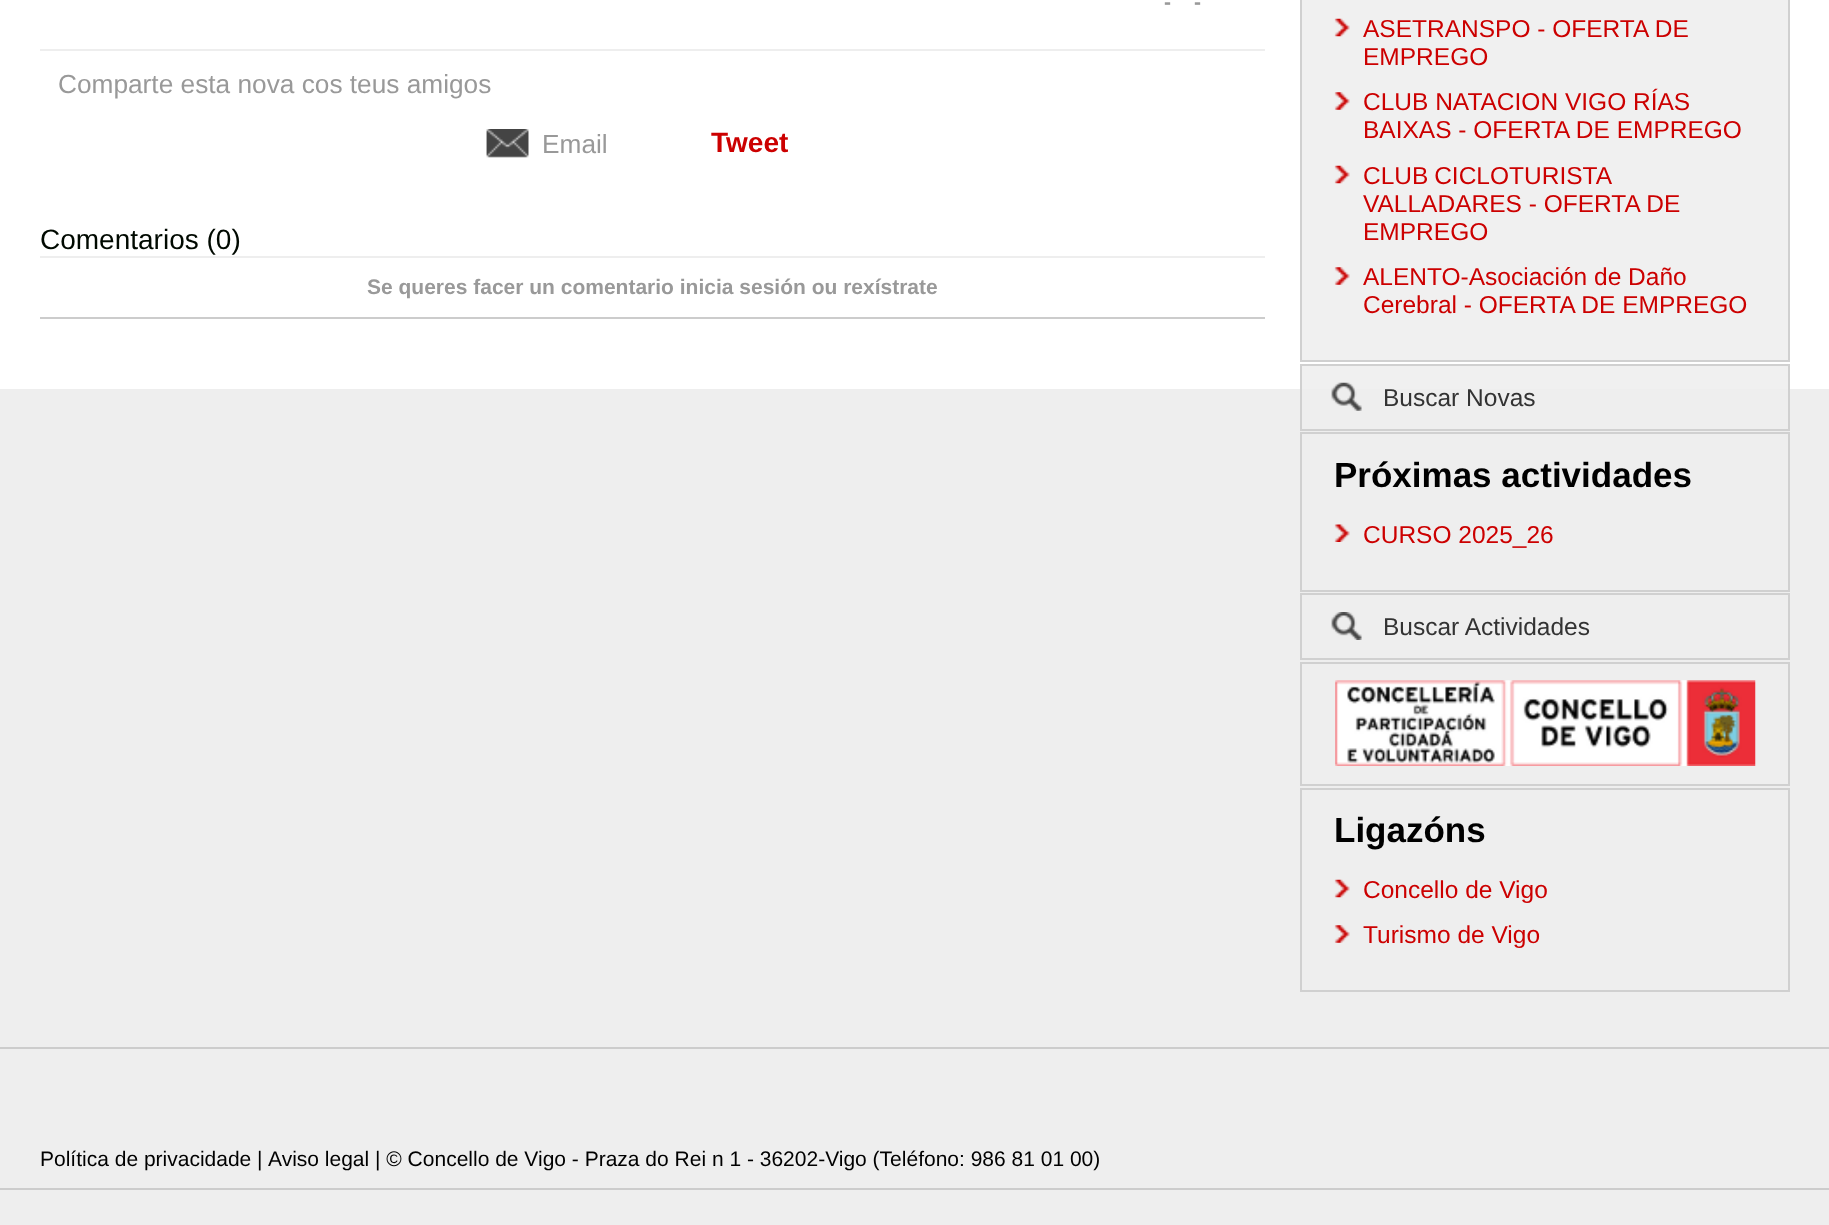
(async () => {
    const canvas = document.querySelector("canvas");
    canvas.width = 1829;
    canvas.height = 1225;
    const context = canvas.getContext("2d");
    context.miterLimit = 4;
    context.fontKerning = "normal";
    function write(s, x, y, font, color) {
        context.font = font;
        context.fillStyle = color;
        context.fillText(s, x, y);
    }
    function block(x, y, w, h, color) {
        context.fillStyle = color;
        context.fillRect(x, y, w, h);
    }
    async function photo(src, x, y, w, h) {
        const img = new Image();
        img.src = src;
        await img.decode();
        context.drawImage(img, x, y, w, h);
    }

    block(0, 0, 1829, 1225, "rgb(238, 238, 238)");
    block(0, 0, 1829, 389, "rgb(255, 255, 255)");
    block(40, 317, 1225, 2, "rgb(204, 204, 204)");
    write("-", 1164, 9, "bold 21px Liberation Sans", "rgb(153, 153, 153)");
    write("-", 1194, 9, "bold 21px Liberation Sans", "rgb(153, 153, 153)");
    block(40, 49, 1225, 2, "rgb(238, 238, 238)");
    write("Comparte esta nova cos teus amigos", 58, 93, "26.25px Liberation Sans", "rgb(153, 153, 153)");
    await photo("media/1.png", 486, 129, 43, 29);
    write("Email", 542, 153, "26.25px Liberation Sans", "rgb(153, 153, 153)");
    write("Tweet", 711, 152, "bold 28px Liberation Sans", "rgb(204, 0, 0)");
    block(40, 256, 1225, 2, "rgb(238, 238, 238)");
    write("Comentarios (0)", 40, 249, "28px Liberation Sans", "rgb(0, 9, 0)");
    write("Se queres facer un comentario inicia sesión ou rexístrate", 367, 294, "bold 21px Liberation Sans", "rgb(153, 153, 153)");
    context.fillStyle = "rgb(240, 240, 240)";
    context.beginPath();
    context.rect(1301, -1, 488, 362);
    context.fill();
    context.strokeStyle = "rgb(208, 208, 208)";
    context.lineWidth = 2;
    context.stroke();
    await photo("media/2.png", 1334, 18, 16, 19);
    write("ASETRANSPO - OFERTA DE", 1363, 37, "24.5px Liberation Sans", "rgb(204, 0, 0)");
    write("EMPREGO", 1363, 65, "24.5px Liberation Sans", "rgb(204, 0, 0)");
    await photo("media/3.png", 1334, 92, 16, 18);
    write("CLUB NATACION VIGO RÍAS", 1363, 110, "24.5px Liberation Sans", "rgb(204, 0, 0)");
    write("BAIXAS - OFERTA DE EMPREGO", 1363, 138, "24.5px Liberation Sans", "rgb(204, 0, 0)");
    await photo("media/2.png", 1334, 165, 16, 19);
    context.wordSpacing = "-1px";
    write("CLUB CICLOTURISTA", 1363, 184, "24.5px Liberation Sans", "rgb(204, 0, 0)");
    context.wordSpacing = "0px";
    write("VALLADARES - OFERTA DE", 1363, 212, "24.5px Liberation Sans", "rgb(204, 0, 0)");
    write("EMPREGO", 1363, 240, "24.5px Liberation Sans", "rgb(204, 0, 0)");
    await photo("media/3.png", 1334, 267, 16, 18);
    write("ALENTO-Asociación de Daño", 1363, 285, "24.5px Liberation Sans", "rgb(204, 0, 0)");
    write("Cerebral - OFERTA DE EMPREGO", 1363, 313, "24.5px Liberation Sans", "rgb(204, 0, 0)");
    block(1302, 366, 486, 23, "rgb(240, 240, 240)");
    context.strokeRect(1301, 365, 488, 65);
    await photo("media/4.png", 1331, 382, 31, 29);
    write("Buscar Novas", 1383, 406, "24.5px Liberation Sans", "rgb(51, 51, 51)");
    context.strokeRect(1301, 433, 488, 158);
    write("Próximas actividades", 1334, 487, "bold 35px Liberation Sans", "rgb(0, 0, 0)");
    await photo("media/5.png", 1334, 524, 16, 18);
    write("CURSO 2025_26", 1363, 543, "24.5px Liberation Sans", "rgb(204, 0, 0)");
    context.strokeRect(1301, 594, 488, 65);
    await photo("media/6.png", 1331, 612, 31, 28);
    write("Buscar Actividades", 1383, 635, "24.5px Liberation Sans", "rgb(51, 51, 51)");
    context.strokeRect(1301, 663, 488, 122);
    await photo("media/7.png", 1335, 680, 421, 86);
    context.strokeRect(1301, 789, 488, 202);
    write("Ligazóns", 1334, 842, "bold 35px Liberation Sans", "rgb(0, 0, 0)");
    await photo("media/2.png", 1334, 879, 16, 19);
    write("Concello de Vigo", 1363, 898, "24.5px Liberation Sans", "rgb(204, 0, 0)");
    await photo("media/3.png", 1334, 925, 16, 18);
    write("Turismo de Vigo", 1363, 943, "24.5px Liberation Sans", "rgb(204, 0, 0)");
    block(0, 1047, 1829, 2, "rgb(204, 204, 204)");
    block(0, 1188, 1829, 2, "rgb(204, 204, 204)");
    write("Política de privacidade", 40, 1166, "21px Liberation Sans", "rgb(0, 0, 0)");
    write("|", 257, 1166, "21px Liberation Sans", "rgb(0, 0, 0)");
    write("Aviso legal | © Concello de Vigo - Praza do Rei n 1 - 36202-Vigo (Teléfono: 986 81 01 00)", 268, 1166, "21px Liberation Sans", "rgb(0, 0, 0)");
})();
